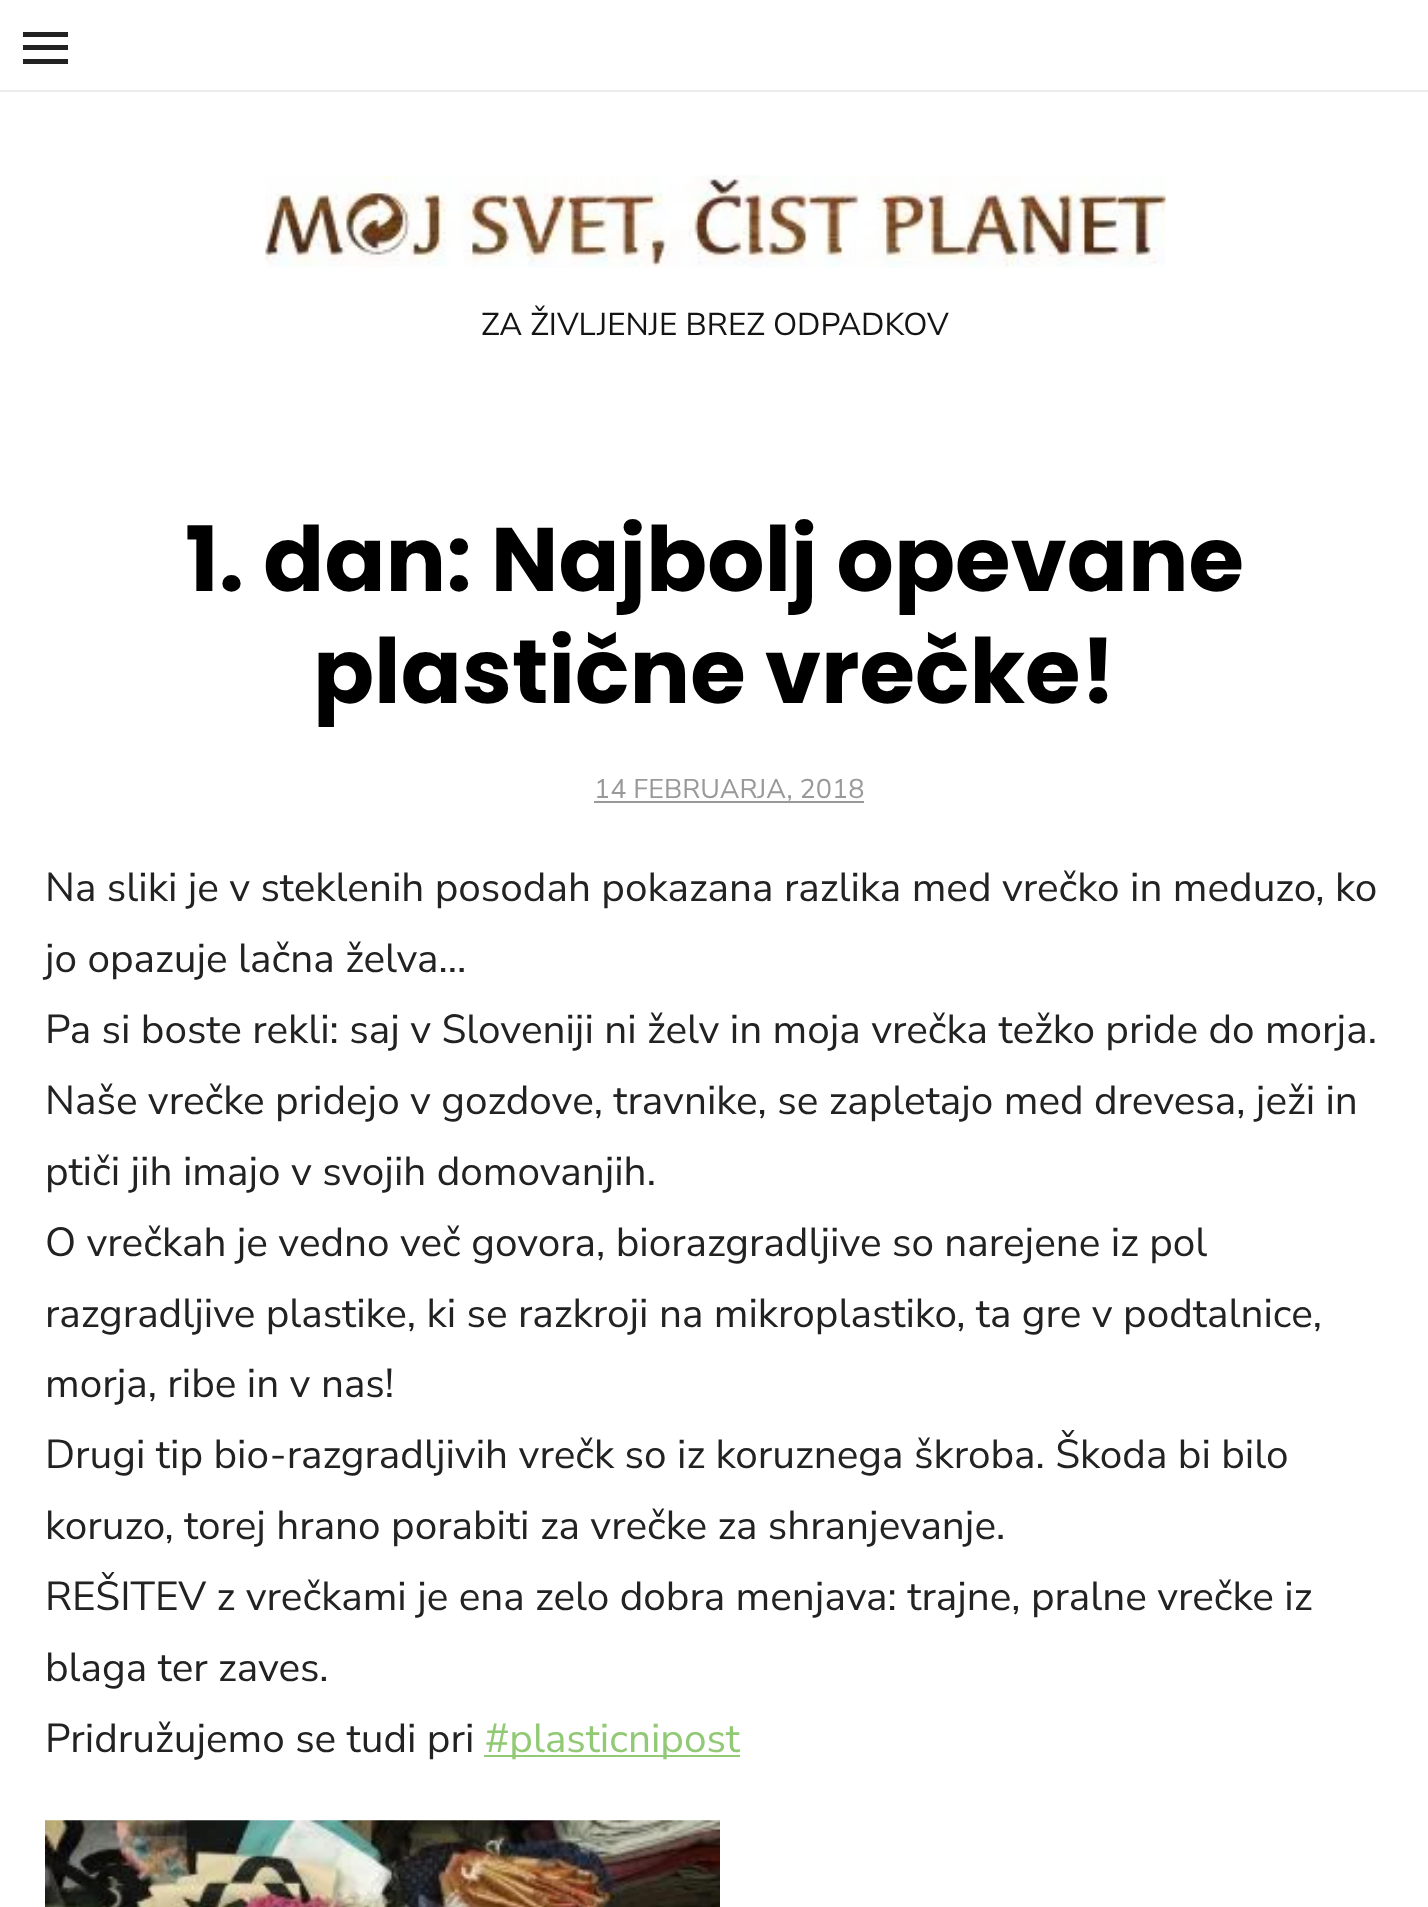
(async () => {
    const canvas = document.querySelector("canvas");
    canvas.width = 1428;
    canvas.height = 1907;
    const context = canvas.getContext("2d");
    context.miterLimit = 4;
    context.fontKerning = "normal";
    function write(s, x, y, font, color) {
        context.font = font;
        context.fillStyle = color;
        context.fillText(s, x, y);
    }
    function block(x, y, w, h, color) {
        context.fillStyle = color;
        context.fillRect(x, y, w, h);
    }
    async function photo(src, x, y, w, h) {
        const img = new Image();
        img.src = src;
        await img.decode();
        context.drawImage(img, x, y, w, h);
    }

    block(0, 0, 1428, 1907, "rgb(255, 255, 255)");
    block(0, 90, 1428, 2, "rgb(237, 237, 237)");
    block(23, 45, 45, 5, "rgb(34, 34, 34)");
    block(23, 32, 45, 5, "rgb(34, 34, 34)");
    block(23, 59, 45, 5, "rgb(34, 34, 34)");
    await photo("media/1.png", 265, 175, 901, 93);
    write("ZA ŽIVLJENJE BREZ ODPADKOV", 481, 335, "31.5px Nunito Sans", "rgb(20, 20, 20)");
    write("1. dan: Najbolj opevane", 185, 591, "bold 90px Poppins", "rgb(0, 0, 0)");
    write("plastične vrečke!", 313, 703, "bold 90px Poppins", "rgb(0, 0, 0)");
    block(594, 801, 270, 2, "rgb(153, 153, 153)");
    write("14 FEBRUARJA, 2018", 594, 798, "27px Nunito Sans", "rgb(153, 153, 153)");
    write("Na sliki je v steklenih posodah pokazana razlika med vrečko in meduzo, ko", 45, 901, "40.5px Nunito Sans", "rgb(34, 34, 34)");
    write("jo opazuje lačna želva…", 45, 972, "40.5px Nunito Sans", "rgb(34, 34, 34)");
    write("Pa si boste rekli: saj v Sloveniji ni želv in moja vrečka težko pride do morja.", 45, 1043, "40.5px Nunito Sans", "rgb(34, 34, 34)");
    write("Naše vrečke pridejo v gozdove, travnike, se zapletajo med drevesa, ježi in", 45, 1114, "40.5px Nunito Sans", "rgb(34, 34, 34)");
    write("ptiči jih imajo v svojih domovanjih.", 45, 1185, "40.5px Nunito Sans", "rgb(34, 34, 34)");
    write("O vrečkah je vedno več govora, biorazgradljive so narejene iz pol", 45, 1256, "40.5px Nunito Sans", "rgb(34, 34, 34)");
    write("razgradljive plastike, ki se razkroji na mikroplastiko, ta gre v podtalnice,", 45, 1327, "40.5px Nunito Sans", "rgb(34, 34, 34)");
    write("morja, ribe in v nas!", 45, 1397, "40.5px Nunito Sans", "rgb(34, 34, 34)");
    write("Drugi tip bio-razgradljivih vrečk so iz koruznega škroba. Škoda bi bilo", 45, 1468, "40.5px Nunito Sans", "rgb(34, 34, 34)");
    write("koruzo, torej hrano porabiti za vrečke za shranjevanje.", 45, 1539, "40.5px Nunito Sans", "rgb(34, 34, 34)");
    write("REŠITEV z vrečkami je ena zelo dobra menjava: trajne, pralne vrečke iz", 45, 1610, "40.5px Nunito Sans", "rgb(34, 34, 34)");
    write("blaga ter zaves.", 45, 1681, "40.5px Nunito Sans", "rgb(34, 34, 34)");
    write("Pridružujemo se tudi pri", 45, 1752, "40.5px Nunito Sans", "rgb(34, 34, 34)");
    block(484, 1755, 256, 2, "rgb(145, 201, 116)");
    write("#plasticnipost", 485, 1752, "40.5px Nunito Sans", "rgb(145, 201, 116)");
    await photo("media/2.png", 45, 1820, 675, 87);
})();
